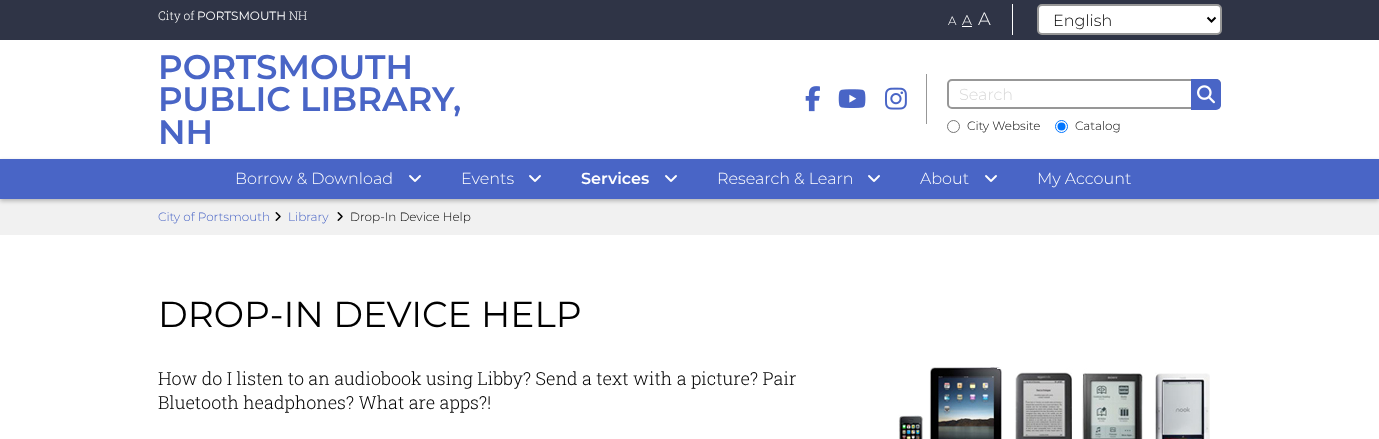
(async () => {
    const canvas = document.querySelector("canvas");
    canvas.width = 1379;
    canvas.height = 439;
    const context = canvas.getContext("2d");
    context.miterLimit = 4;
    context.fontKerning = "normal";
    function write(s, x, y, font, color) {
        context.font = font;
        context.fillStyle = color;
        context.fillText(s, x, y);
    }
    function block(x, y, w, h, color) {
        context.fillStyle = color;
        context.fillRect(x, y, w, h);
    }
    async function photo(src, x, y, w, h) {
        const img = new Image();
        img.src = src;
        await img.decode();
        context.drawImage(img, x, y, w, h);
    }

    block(0, 0, 1379, 439, "rgb(255, 255, 255)");
    block(0, 0, 1379, 40, "rgb(47, 52, 70)");
    write("City of", 158, 20, "300 12px Roboto Slab", "rgb(255, 255, 255)");
    write("PORTSMOUTH", 197, 20, "12px Montserrat", "rgb(255, 255, 255)");
    write("NH", 289, 20, "300 12px Roboto Slab", "rgb(255, 255, 255)");
    write("A", 948, 25, "300 12px Montserrat", "rgb(255, 255, 255)");
    write("A", 962, 25, "300 14px Montserrat", "rgb(255, 255, 255)");
    block(962, 26, 10, 1, "rgb(255, 255, 255)");
    write("A", 978, 25, "300 18px Montserrat", "rgb(255, 255, 255)");
    block(1012, 4, 1, 31, "rgb(255, 255, 255)");
    context.beginPath();
    context.roundRect(1038, 5, 183, 29, 4);
    context.fill();
    context.strokeStyle = "rgb(151, 151, 151)";
    context.lineWidth = 2;
    context.stroke();
    context.beginPath();
    context.moveTo(1207.5, 17.5);
    context.lineTo(1211.5, 21.5);
    context.lineTo(1215.5, 17.5);
    context.strokeStyle = "rgb(0, 0, 0)";
    context.stroke();
    write("English", 1053, 26, "300 16px Montserrat", "rgb(0, 0, 0)");
    write("PORTSMOUTH", 158, 79, "600 34px Montserrat", "rgb(73, 101, 198)");
    write("PUBLIC LIBRARY,", 158, 111, "600 34px Montserrat", "rgb(73, 101, 198)");
    write("NH", 158, 144, "600 34px Montserrat", "rgb(73, 101, 198)");
    block(926, 74, 1, 50, "rgb(151, 151, 151)");
    await photo("media/1.png", 805, 86, 15, 26);
    await photo("media/2.png", 838, 89, 28, 19);
    await photo("media/3.png", 885, 87, 22, 23);
    context.beginPath();
    context.roundRect(948, 80, 272, 28, 4);
    context.strokeStyle = "rgb(151, 151, 151)";
    context.stroke();
    write("Search", 959, 100, "300 16px Montserrat", "rgb(216, 216, 216)");
    context.fillStyle = "rgb(73, 101, 198)";
    context.beginPath();
    context.roundRect(1191, 79, 30, 31, [0, 5, 5, 0]);
    context.fill();
    await photo("media/4.png", 1197, 85, 18, 19);
    context.beginPath();
    context.arc(953.5, 126.5, 6, 0, Math.PI * 2);
    context.strokeStyle = "rgb(118, 118, 118)";
    context.lineWidth = 1;
    context.stroke();
    write("City Website", 967, 130, "300 12px Montserrat", "rgb(0, 0, 0)");
    context.beginPath();
    context.arc(1061.5, 126.5, 6, 0, Math.PI * 2);
    context.strokeStyle = "rgb(0, 117, 255)";
    context.stroke();
    context.fillStyle = "rgb(0, 117, 255)";
    context.beginPath();
    context.arc(1061.5, 126.5, 4, 0, Math.PI * 2);
    context.fill();
    write("Catalog", 1075, 130, "300 12px Montserrat", "rgb(0, 0, 0)");
    block(0, 199, 1379, 36, "rgb(241, 241, 241)");
    context.fillStyle = "rgba(0, 0, 0, 0.25)";
    context.filter = "blur(2px)";
    context.beginPath();
    context.rect(0, 161, 1379, 40);
    context.fill();
    context.filter = "none";
    block(0, 159, 1379, 40, "rgb(73, 101, 198)");
    write("Borrow & Download", 235, 184, "300 16px Montserrat", "rgb(255, 255, 255)");
    await photo("media/5.png", 409, 175, 12, 7);
    write("Events", 461, 184, "300 16px Montserrat", "rgb(255, 255, 255)");
    await photo("media/5.png", 529, 175, 12, 7);
    write("Services", 581, 184, "600 16px Montserrat", "rgb(255, 255, 255)");
    await photo("media/5.png", 665, 175, 12, 7);
    write("Research & Learn", 717, 184, "300 16px Montserrat", "rgb(255, 255, 255)");
    await photo("media/5.png", 868, 175, 12, 7);
    write("About", 920, 184, "300 16px Montserrat", "rgb(255, 255, 255)");
    await photo("media/5.png", 985, 175, 12, 7);
    write("My Account", 1037, 184, "300 16px Montserrat", "rgb(255, 255, 255)");
    write("City of Portsmouth", 158, 221, "300 12px Montserrat", "rgb(73, 101, 198)");
    await photo("media/6.png", 275, 212, 6, 9);
    write("Library", 288, 221, "300 12px Montserrat", "rgb(73, 101, 198)");
    await photo("media/6.png", 337, 212, 6, 9);
    write("Drop-In Device Help", 350, 221, "300 12px Montserrat", "rgb(0, 0, 0)");
    write("DROP-IN DEVICE HELP", 158, 327, "36px Montserrat", "rgb(0, 0, 0)");
    write("How do I listen to an audiobook using Libby? Send a text with a picture? Pair", 158, 385, "300 18px Roboto Slab", "rgb(0, 0, 0)");
    await photo("media/7.png", 898, 367, 312, 72);
    write("Bluetooth headphones? What are apps?!", 158, 409, "300 18px Roboto Slab", "rgb(0, 0, 0)");
})();
